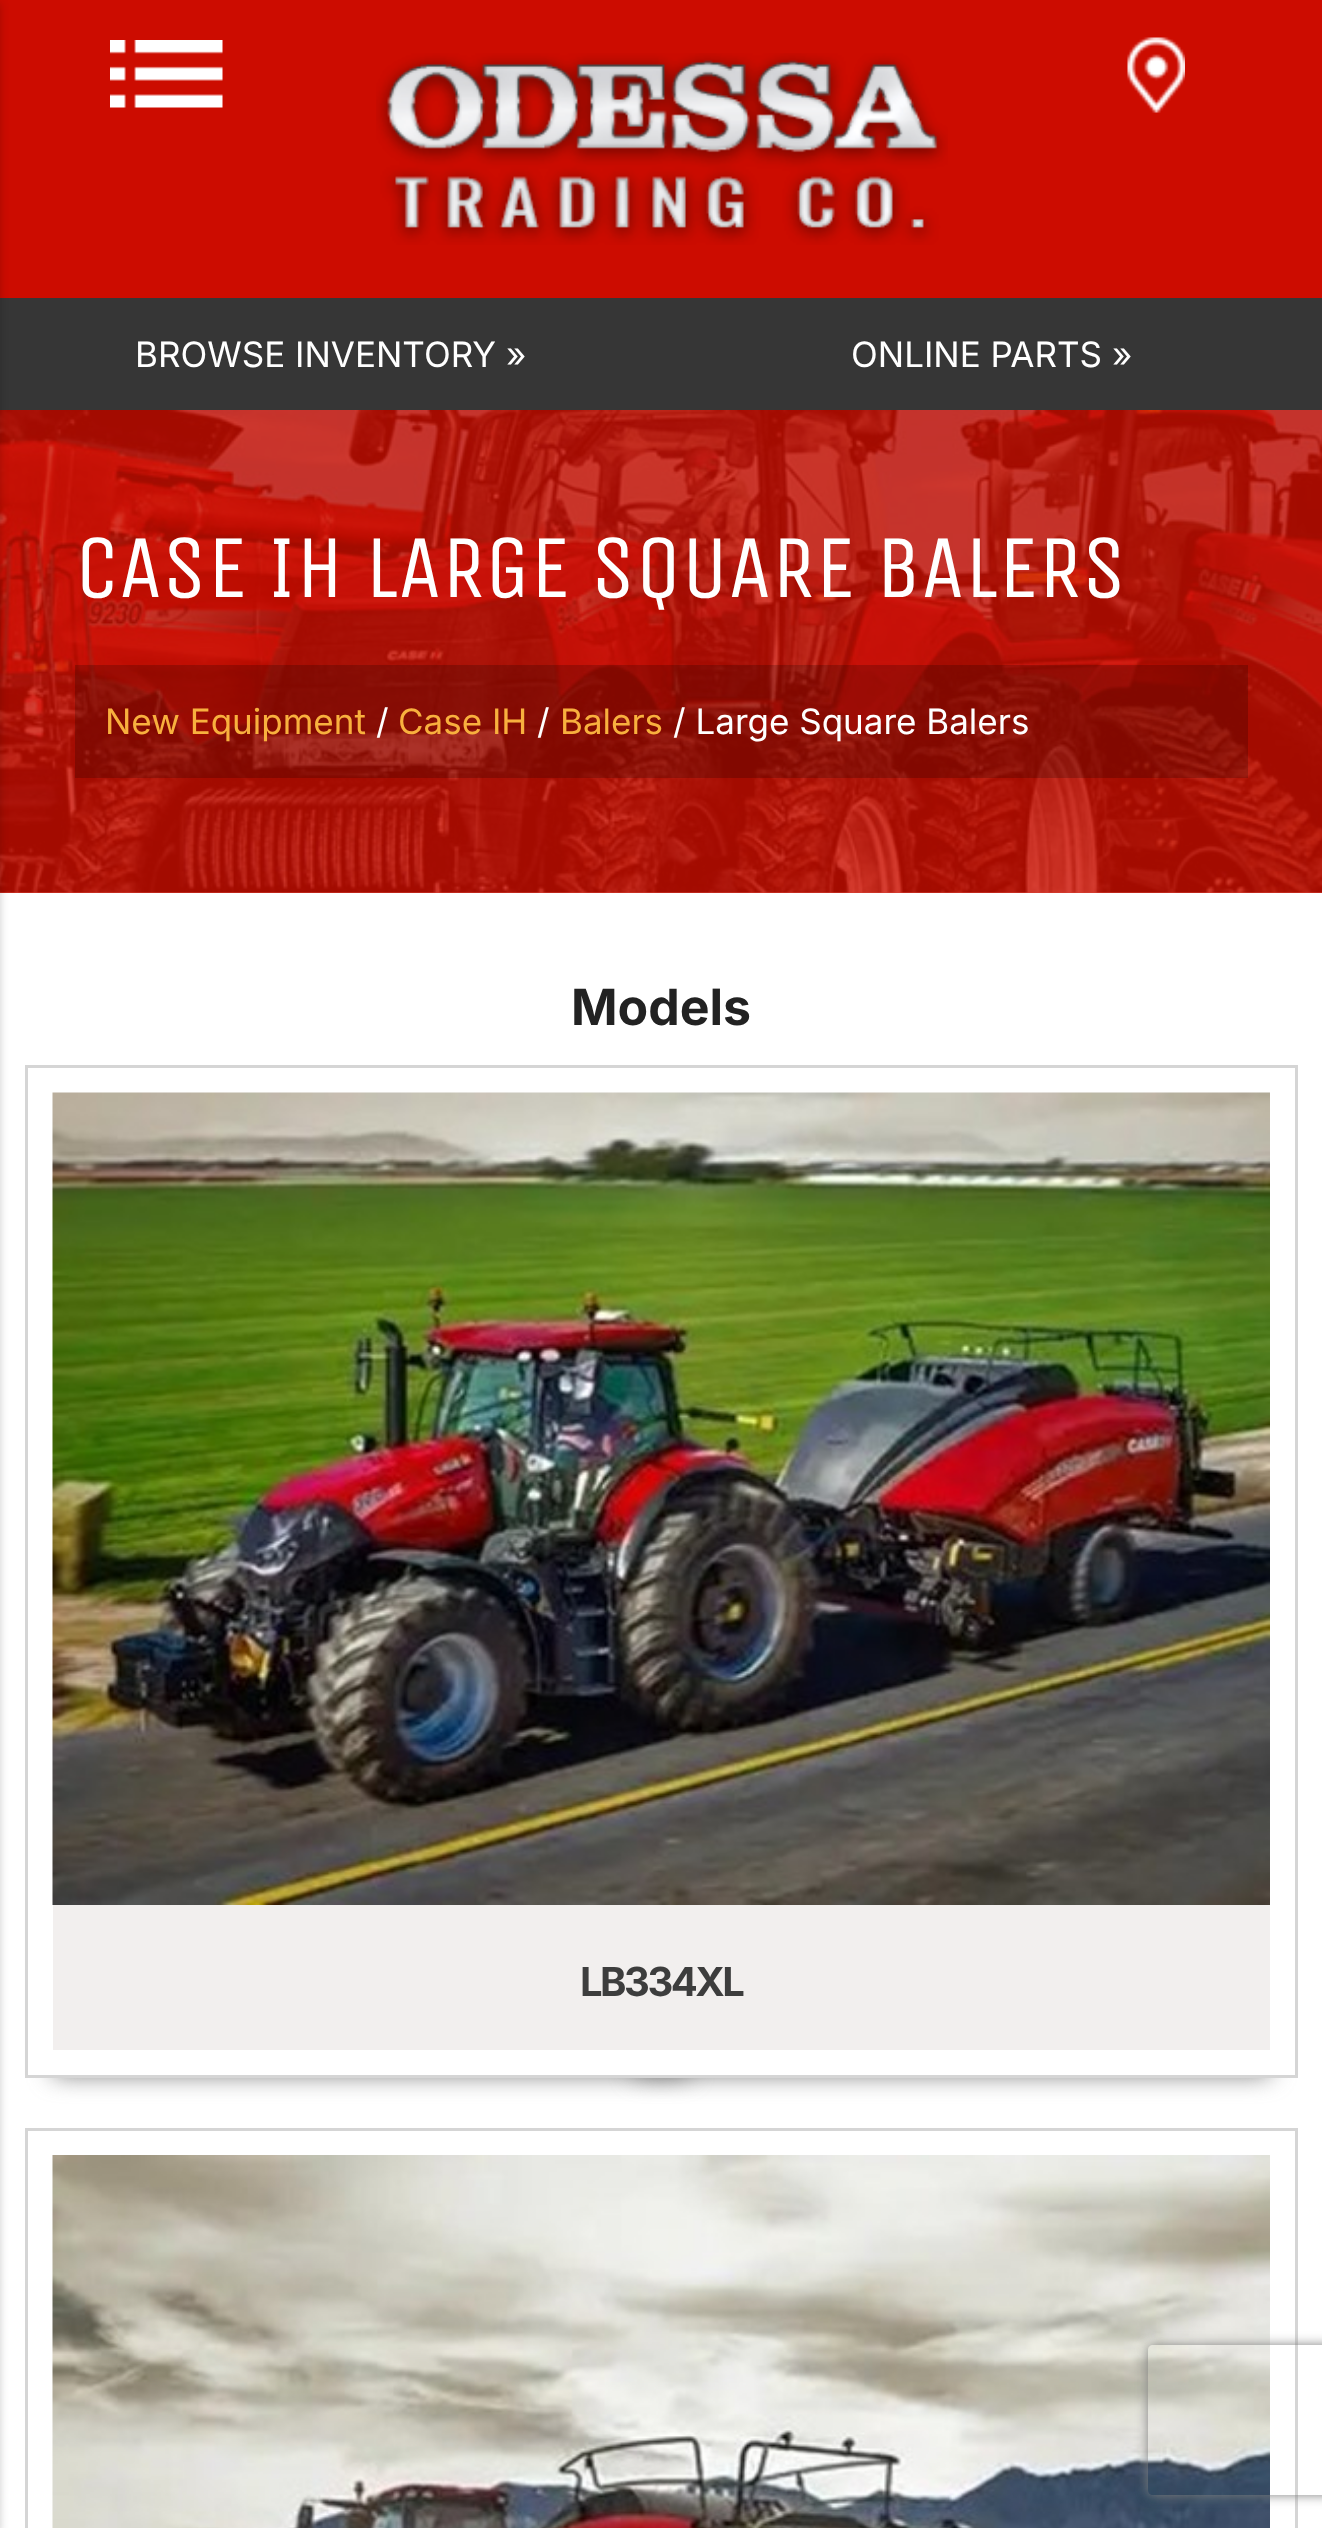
(async () => {
    const canvas = document.querySelector("canvas");
    canvas.width = 1322;
    canvas.height = 2528;
    const context = canvas.getContext("2d");
    context.miterLimit = 4;
    context.fontKerning = "normal";
    function write(s, x, y, font, color) {
        context.font = font;
        context.fillStyle = color;
        context.fillText(s, x, y);
    }
    function block(x, y, w, h, color) {
        context.fillStyle = color;
        context.fillRect(x, y, w, h);
    }
    async function photo(src, x, y, w, h) {
        const img = new Image();
        img.src = src;
        await img.decode();
        context.drawImage(img, x, y, w, h);
    }

    block(0, 0, 1322, 2528, "rgb(255, 255, 255)");
    block(0, 892, 1322, 1, "rgb(214, 62, 51)");
    block(0, 0, 1322, 298, "rgb(204, 12, 0)");
    block(0, 298, 1322, 112, "rgb(54, 54, 54)");
    await photo("media/4.png", 0, 410, 1322, 483);
    context.fillStyle = "rgba(0, 0, 0, 0.2)";
    context.filter = "blur(4px)";
    context.beginPath();
    context.rect(-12, 3, 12, 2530);
    context.fill();
    context.filter = "none";
    await photo("media/1.png", 110, 40, 113, 68);
    await photo("media/2.png", 376, 53, 572, 192);
    await photo("media/3.png", 1127, 37, 58, 76);
    write("BROWSE INVENTORY »", 135, 367, "35px Inter", "rgb(255, 255, 255)");
    write("ONLINE PARTS »", 851, 367, "35px Inter", "rgb(255, 255, 255)");
    write("CASE IH LARGE SQUARE BALERS", 75, 597, "90px Unica One", "rgb(255, 255, 255)");
    block(75, 665, 1173, 113, "rgba(0, 0, 0, 0.2)");
    write("New Equipment", 105, 734, "35px Inter", "rgb(248, 176, 62)");
    write("/", 376, 734, "35px Inter", "rgb(255, 255, 255)");
    write("Case IH", 398, 734, "35px Inter", "rgb(248, 176, 62)");
    write("/", 537, 734, "35px Inter", "rgb(255, 255, 255)");
    write("Balers", 560, 734, "35px Inter", "rgb(248, 176, 62)");
    write("/ Large Square Balers", 673, 734, "35px Inter", "rgb(255, 255, 255)");
    write("Models", 571, 1025, "bold 50px Inter", "rgb(34, 34, 34)");
    context.fillStyle = "rgb(119, 119, 119)";
    context.filter = "blur(12.5px)";
    context.beginPath();
    context.rect(53, 1910, 635, 165);
    context.fill();
    context.filter = "none";
    context.filter = "blur(12.5px)";
    context.beginPath();
    context.rect(635, 1910, 635, 165);
    context.fill();
    context.filter = "none";
    block(28, 1881, 1267, 194, "rgb(255, 255, 255)");
    context.strokeStyle = "rgb(213, 213, 213)";
    context.lineWidth = 3;
    context.strokeRect(26.5, 1066.5, 1270, 1010);
    await photo("media/5.png", 52, 1092, 1218, 813);
    block(53, 1905, 1217, 145, "rgb(242, 239, 238)");
    context.letterSpacing = "-2.5px";
    write("LB334XL", 580, 1996, "bold 40px Inter", "rgb(61, 61, 61)");
    context.strokeRect(26.5, 2129.5, 1270, 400);
    await photo("media/6.png", 52, 2155, 1218, 373);
    context.save();
    context.beginPath();
    context.moveTo(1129, 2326);
    context.lineTo(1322, 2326);
    context.lineTo(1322, 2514);
    context.lineTo(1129, 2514);
    context.closePath();
    context.moveTo(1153, 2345);
    context.lineTo(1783, 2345);
    context.bezierCurveTo(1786, 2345, 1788, 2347, 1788, 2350);
    context.lineTo(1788, 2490);
    context.bezierCurveTo(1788, 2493, 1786, 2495, 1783, 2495);
    context.lineTo(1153, 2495);
    context.bezierCurveTo(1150, 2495, 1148, 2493, 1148, 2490);
    context.lineTo(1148, 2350);
    context.bezierCurveTo(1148, 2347, 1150, 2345, 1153, 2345);
    context.closePath();
    context.clip("evenodd");
    context.fillStyle = "rgb(128, 128, 128)";
    context.filter = "blur(6px)";
    context.beginPath();
    context.roundRect(1148, 2345, 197, 150, 5);
    context.fill();
    context.filter = "none";
    context.restore();
})();
